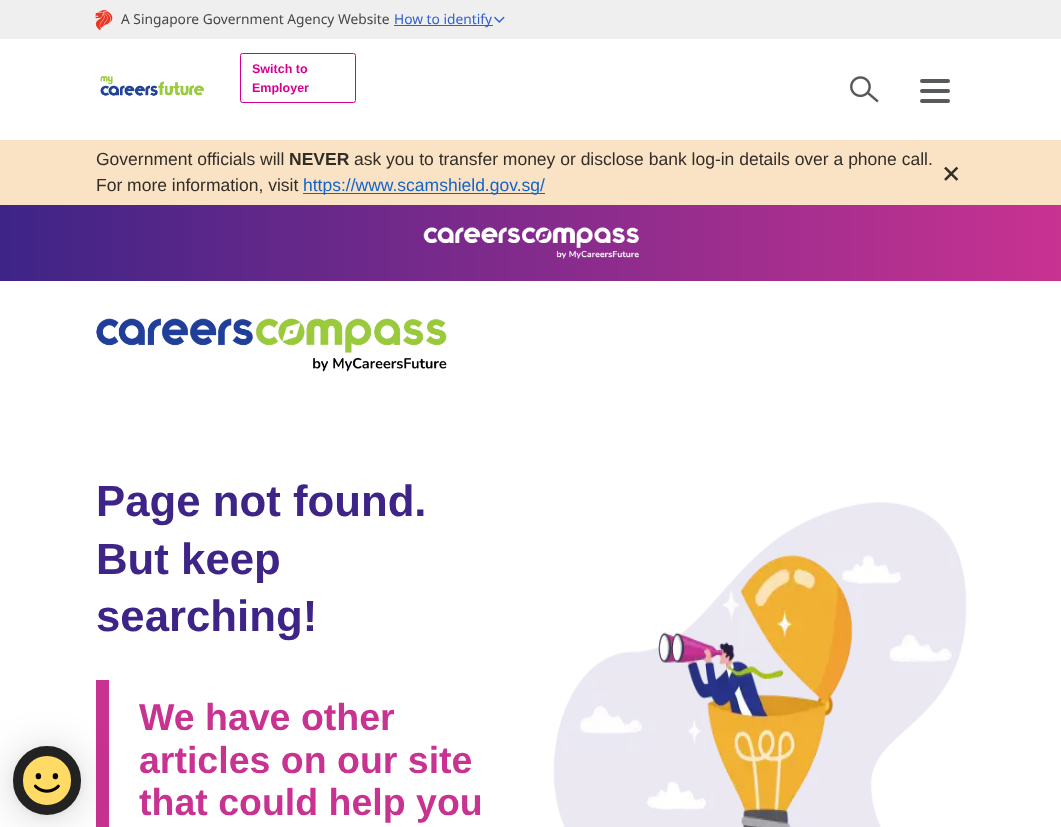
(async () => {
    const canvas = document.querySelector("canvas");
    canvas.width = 1061;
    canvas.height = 827;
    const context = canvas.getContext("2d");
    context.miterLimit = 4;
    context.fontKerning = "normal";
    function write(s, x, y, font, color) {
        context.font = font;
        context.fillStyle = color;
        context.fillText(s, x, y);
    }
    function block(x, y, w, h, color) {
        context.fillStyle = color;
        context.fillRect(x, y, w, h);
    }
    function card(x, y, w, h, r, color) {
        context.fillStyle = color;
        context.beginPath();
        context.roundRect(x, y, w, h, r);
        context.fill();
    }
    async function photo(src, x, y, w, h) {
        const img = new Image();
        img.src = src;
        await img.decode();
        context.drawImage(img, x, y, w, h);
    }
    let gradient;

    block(0, 0, 1061, 827, "rgb(255, 255, 255)");
    block(0, 0, 1061, 39, "rgb(239, 239, 239)");
    await photo("media/1.png", 95, 10, 18, 21);
    write("A Singapore Government Agency Website", 121, 24, "13.75px Noto Sans", "rgb(71, 71, 71)");
    block(394, 25, 99, 1, "rgb(47, 95, 208)");
    write("How to identify", 394, 24, "13.75px Noto Sans", "rgb(47, 95, 208)");
    await photo("media/2.png", 494, 16, 11, 7);
    block(96, 680, 13, 147, "rgb(200, 50, 145)");
    context.fillStyle = "rgba(0, 0, 0, 0.16)";
    context.filter = "blur(20px)";
    context.beginPath();
    context.roundRect(13, 749, 68, 69, 34);
    context.fill();
    context.filter = "none";
    context.fillStyle = "rgba(0, 0, 0, 0.06)";
    context.filter = "blur(4px)";
    context.beginPath();
    context.roundRect(13, 748, 68, 68, 34);
    context.fill();
    context.filter = "none";
    context.fillStyle = "rgb(255, 219, 102)";
    context.beginPath();
    context.roundRect(18, 751, 58, 59, 29);
    context.fill();
    context.strokeStyle = "rgb(34, 34, 34)";
    context.lineWidth = 10;
    context.stroke();
    await photo("media/3.png", 34, 773, 26, 20);
    await photo("media/4.png", 100, 76, 105, 20);
    context.beginPath();
    context.roundRect(240.5, 53.5, 115, 49, 2);
    context.strokeStyle = "rgb(213, 0, 143)";
    context.lineWidth = 1;
    context.stroke();
    write("Switch to", 252, 73, "bold 12.5px Liberation Sans", "rgb(214, 0, 143)");
    write("Employer", 252, 92, "bold 12.5px Liberation Sans", "rgb(214, 0, 143)");
    await photo("media/5.png", 850, 76, 29, 27);
    card(920, 79, 30, 4, 2, "rgb(88, 89, 91)");
    card(920, 89, 30, 4, 2, "rgb(88, 89, 91)");
    card(920, 99, 30, 4, 2, "rgb(88, 89, 91)");
    block(0, 140, 1061, 65, "rgb(250, 227, 196)");
    write("Government officials will", 96, 165, "17.5px Liberation Sans", "rgb(50, 45, 39)");
    write("NEVER", 289, 165, "bold 17.5px Liberation Sans", "rgb(50, 45, 39)");
    write("ask you to transfer money or disclose bank log-in details over a phone call.", 354, 165, "17.5px Liberation Sans", "rgb(50, 45, 39)");
    write("For more information, visit", 96, 191, "17.5px Liberation Sans", "rgb(50, 45, 39)");
    block(303, 193, 242, 1, "rgb(18, 99, 203)");
    write("https://www.scamshield.gov.sg/", 303, 191, "17.5px Liberation Sans", "rgb(18, 99, 203)");
    await photo("media/6.png", 944, 166, 15, 15);
    gradient = context.createLinearGradient(0, 243, 1061, 243);
    gradient.addColorStop(0, "rgb(62, 36, 135)");
    gradient.addColorStop(1, "rgb(200, 50, 145)");
    context.fillStyle = gradient;
    context.fillRect(0, 205, 1061, 76);
    await photo("media/7.png", 423, 227, 216, 32);
    await photo("media/8.png", 96, 318, 351, 54);
    write("Page not found.", 96, 516, "bold 43.75px Liberation Sans", "rgb(62, 36, 135)");
    write("But keep", 96, 574, "bold 43.75px Liberation Sans", "rgb(62, 36, 135)");
    write("searching!", 96, 631, "bold 43.75px Liberation Sans", "rgb(62, 36, 135)");
    write("We have other", 139, 730, "bold 37.5px Liberation Sans", "rgb(200, 50, 145)");
    write("articles on our site", 139, 773, "bold 37.5px Liberation Sans", "rgb(200, 50, 145)");
    write("that could help you", 139, 815, "bold 37.5px Liberation Sans", "rgb(200, 50, 145)");
    await photo("media/9.png", 553, 502, 414, 325);
})();
